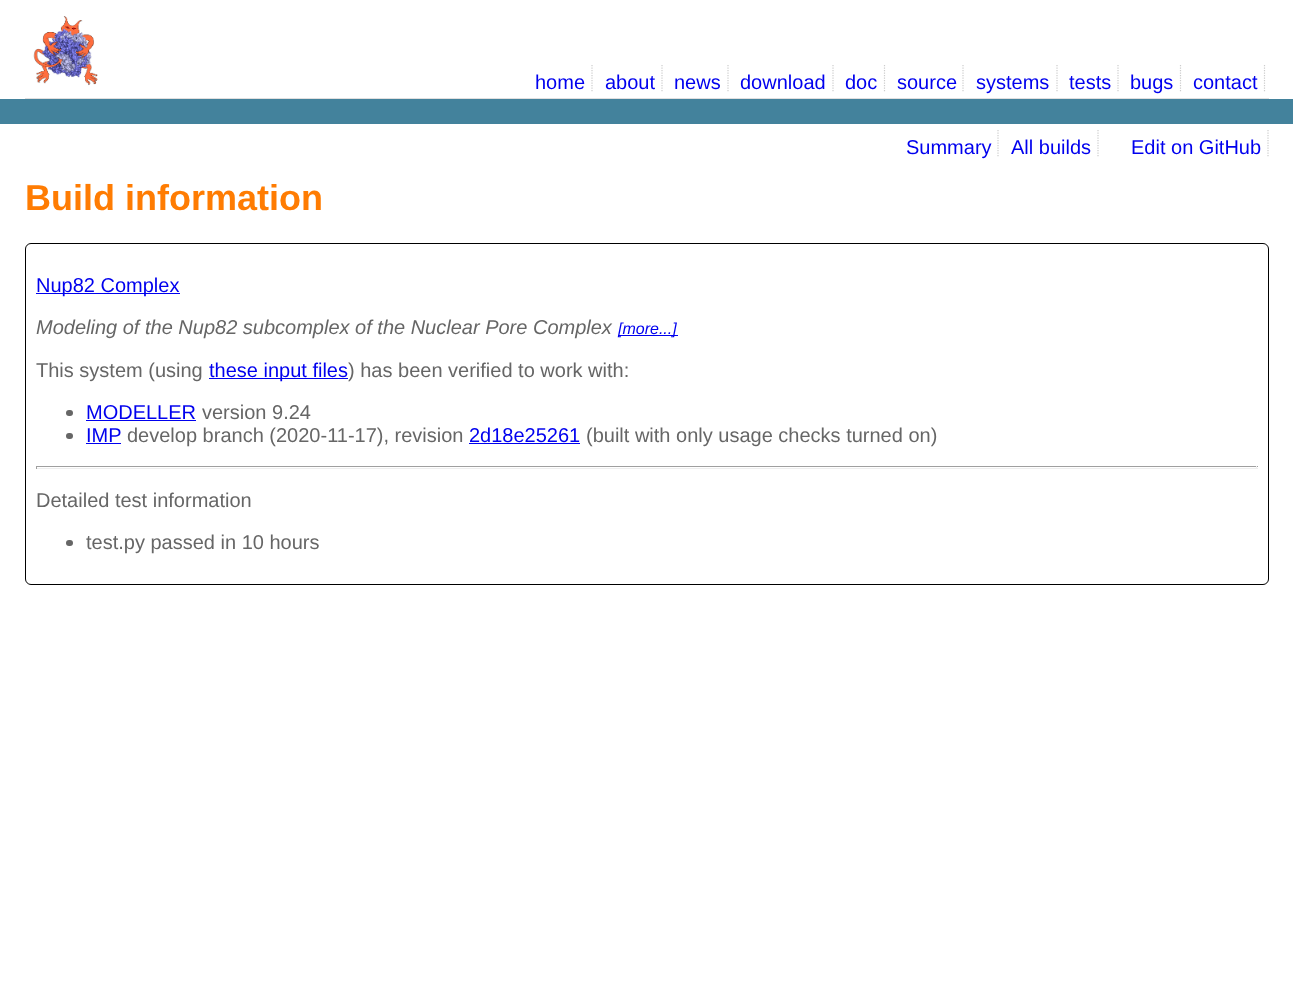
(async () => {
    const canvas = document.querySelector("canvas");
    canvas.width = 1293;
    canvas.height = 989;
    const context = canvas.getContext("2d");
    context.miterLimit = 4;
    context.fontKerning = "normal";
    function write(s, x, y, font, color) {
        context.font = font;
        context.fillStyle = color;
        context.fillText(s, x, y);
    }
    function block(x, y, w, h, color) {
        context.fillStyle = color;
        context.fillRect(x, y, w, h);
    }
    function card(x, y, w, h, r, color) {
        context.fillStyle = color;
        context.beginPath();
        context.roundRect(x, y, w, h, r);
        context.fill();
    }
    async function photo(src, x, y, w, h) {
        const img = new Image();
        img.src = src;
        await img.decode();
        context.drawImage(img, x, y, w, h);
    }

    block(0, 0, 1293, 989, "rgb(255, 255, 255)");
    block(25, 98, 1244, 1, "rgb(224, 223, 223)");
    await photo("media/1.png", 33, 16, 65, 70);
    write("home", 535, 89, "20px Liberation Sans", "rgb(0, 0, 238)");
    context.beginPath();
    context.moveTo(592, 65);
    context.lineTo(592, 92.5);
    context.strokeStyle = "rgb(204, 204, 204)";
    context.lineWidth = 1.2;
    context.setLineDash([1.25, 1.25]);
    context.stroke();
    write("about", 605, 89, "20px Liberation Sans", "rgb(0, 0, 238)");
    context.beginPath();
    context.moveTo(662, 65);
    context.lineTo(662, 92.5);
    context.stroke();
    write("news", 674, 89, "20px Liberation Sans", "rgb(0, 0, 238)");
    context.beginPath();
    context.moveTo(728, 65);
    context.lineTo(728, 92.5);
    context.stroke();
    write("download", 740, 89, "20px Liberation Sans", "rgb(0, 0, 238)");
    context.beginPath();
    context.moveTo(833, 65);
    context.lineTo(833, 92.5);
    context.stroke();
    write("doc", 845, 89, "20px Liberation Sans", "rgb(0, 0, 238)");
    context.beginPath();
    context.moveTo(884.5, 65);
    context.lineTo(884.5, 92.5);
    context.stroke();
    write("source", 897, 89, "20px Liberation Sans", "rgb(0, 0, 238)");
    context.beginPath();
    context.moveTo(963, 65);
    context.lineTo(963, 92.5);
    context.stroke();
    write("systems", 976, 89, "20px Liberation Sans", "rgb(0, 0, 238)");
    context.beginPath();
    context.moveTo(1057, 65);
    context.lineTo(1057, 92.5);
    context.stroke();
    write("tests", 1069, 89, "20px Liberation Sans", "rgb(0, 0, 238)");
    context.beginPath();
    context.moveTo(1118, 65);
    context.lineTo(1118, 92.5);
    context.stroke();
    write("bugs", 1130, 89, "20px Liberation Sans", "rgb(0, 0, 238)");
    context.beginPath();
    context.moveTo(1180.5, 65);
    context.lineTo(1180.5, 92.5);
    context.stroke();
    write("contact", 1193, 89, "20px Liberation Sans", "rgb(0, 0, 238)");
    context.beginPath();
    context.moveTo(1264.5, 65);
    context.lineTo(1264.5, 92.5);
    context.stroke();
    block(0, 99, 1293, 25, "rgb(67, 130, 156)");
    write("Summary", 906, 154, "20px Liberation Sans", "rgb(0, 0, 238)");
    context.beginPath();
    context.moveTo(998, 130);
    context.lineTo(998, 157.5);
    context.stroke();
    write("All builds", 1011, 154, "20px Liberation Sans", "rgb(0, 0, 238)");
    context.beginPath();
    context.moveTo(1098, 130);
    context.lineTo(1098, 157.5);
    context.stroke();
    write("Edit on GitHub", 1131, 154, "20px Liberation Sans", "rgb(0, 0, 238)");
    context.beginPath();
    context.moveTo(1268, 130);
    context.lineTo(1268, 157.5);
    context.stroke();
    write("Build information", 25, 210, "bold 36px Liberation Sans", "rgb(255, 124, 2)");
    context.beginPath();
    context.roundRect(25.5, 243.5, 1243, 341, 5.5);
    context.strokeStyle = "rgb(0, 0, 0)";
    context.lineWidth = 1;
    context.setLineDash([]);
    context.stroke();
    block(36, 293, 144, 1, "rgb(0, 0, 238)");
    write("Nup82 Complex", 36, 292, "20px Liberation Sans", "rgb(0, 0, 238)");
    write("Modeling of the Nup82 subcomplex of the Nuclear Pore Complex", 36, 334, "italic 20px Liberation Sans", "rgb(102, 102, 102)");
    block(618, 335, 60, 1, "rgb(0, 0, 238)");
    write("[more...]", 618, 334, "italic 16px Liberation Sans", "rgb(0, 0, 238)");
    write("This system (using", 36, 377, "20px Liberation Sans", "rgb(102, 102, 102)");
    block(209, 378, 139, 1, "rgb(0, 0, 238)");
    write("these input files", 209, 377, "20px Liberation Sans", "rgb(0, 0, 238)");
    write(") has been verified to work with:", 348, 377, "20px Liberation Sans", "rgb(102, 102, 102)");
    card(66, 410, 7, 6, 3, "rgb(102, 102, 102)");
    write("MODELLER", 86, 419, "20px Liberation Sans", "rgb(0, 0, 238)");
    block(86, 420, 110, 1, "rgb(0, 0, 238)");
    write("version 9.24", 202, 419, "20px Liberation Sans", "rgb(102, 102, 102)");
    card(66, 433, 7, 6, 3, "rgb(102, 102, 102)");
    write("IMP", 86, 442, "20px Liberation Sans", "rgb(0, 0, 238)");
    block(86, 443, 35, 1, "rgb(0, 0, 238)");
    write("develop branch (2020-11-17), revision", 127, 442, "20px Liberation Sans", "rgb(102, 102, 102)");
    write("2d18e25261", 469, 442, "20px Liberation Sans", "rgb(0, 0, 238)");
    block(469, 443, 111, 1, "rgb(0, 0, 238)");
    write("(built with only usage checks turned on)", 586, 442, "20px Liberation Sans", "rgb(102, 102, 102)");
    block(36, 466, 1222, 1, "rgb(159, 159, 159)");
    block(1256, 466, 1, 3, "rgb(238, 238, 238)");
    block(36, 468, 1222, 1, "rgb(238, 238, 238)");
    block(36, 466, 1, 3, "rgb(159, 159, 159)");
    write("Detailed test information", 36, 507, "20px Liberation Sans", "rgb(102, 102, 102)");
    card(66, 540, 7, 6, 3, "rgb(102, 102, 102)");
    write("test.py passed in 10 hours", 86, 549, "20px Liberation Sans", "rgb(102, 102, 102)");
})();
